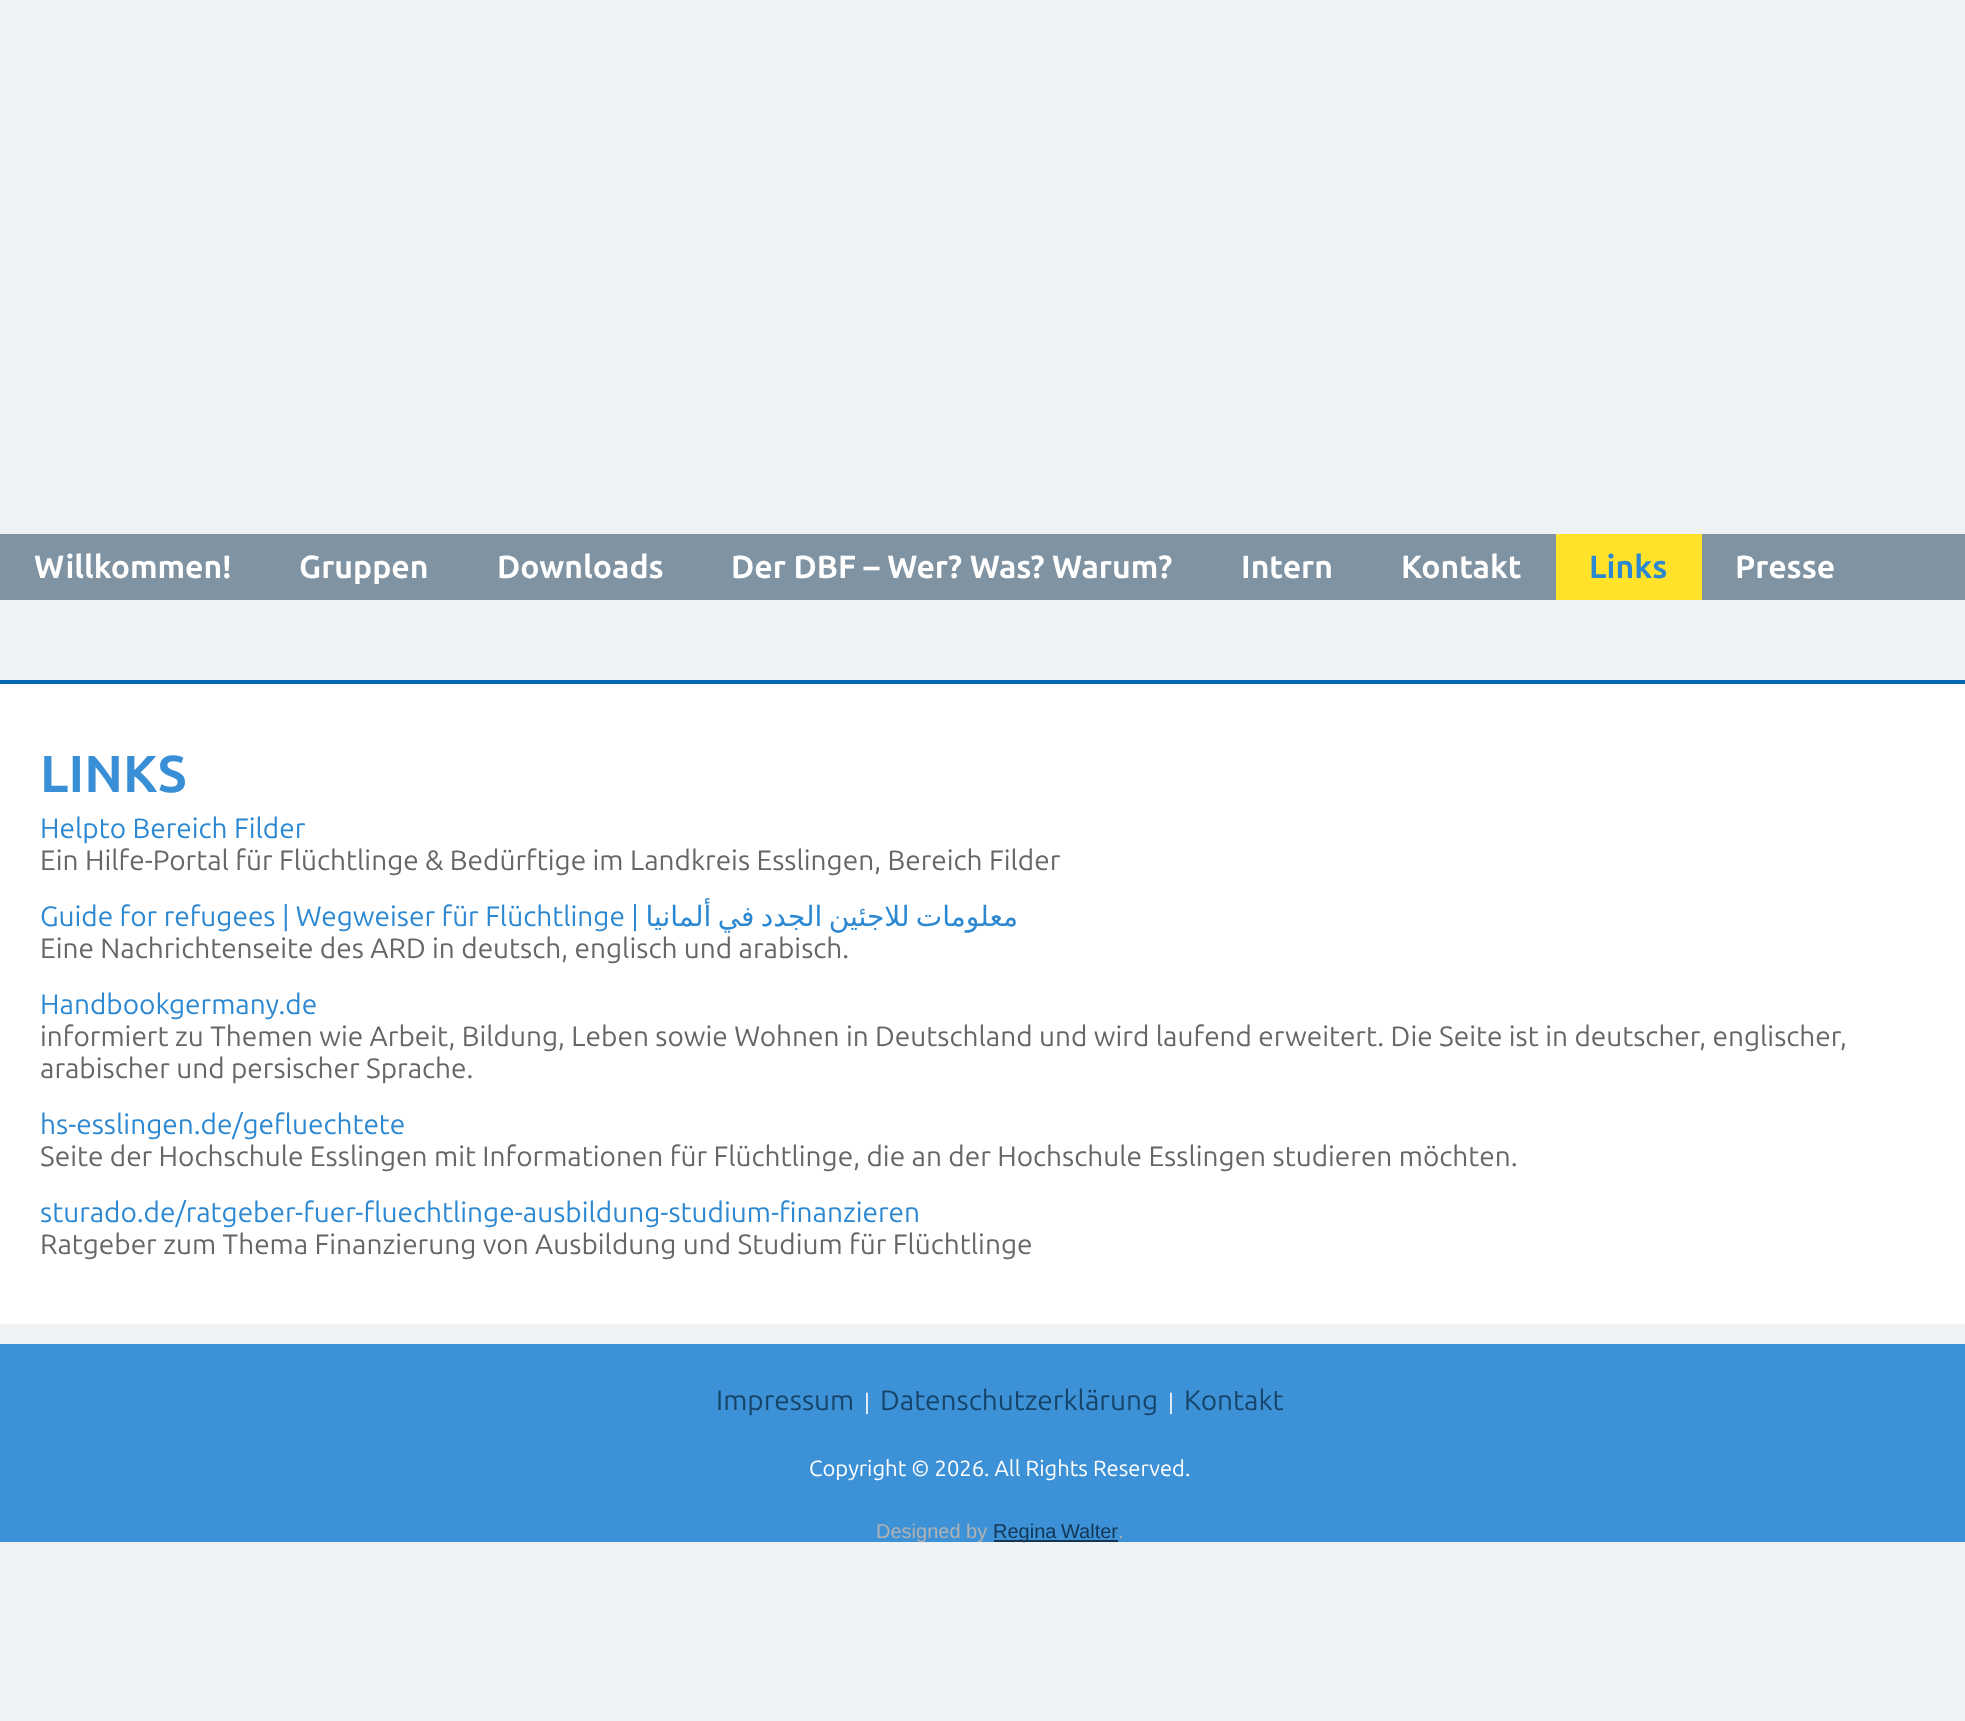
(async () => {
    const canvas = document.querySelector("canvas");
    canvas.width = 1965;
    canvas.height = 1721;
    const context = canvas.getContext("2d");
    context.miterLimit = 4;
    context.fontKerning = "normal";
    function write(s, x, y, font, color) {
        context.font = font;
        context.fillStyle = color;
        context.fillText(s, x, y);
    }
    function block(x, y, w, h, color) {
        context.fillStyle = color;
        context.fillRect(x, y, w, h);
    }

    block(0, 0, 1965, 1721, "rgb(239, 242, 245)");
    block(0, 534, 1965, 66, "rgb(128, 147, 162)");
    write("Willkommen!", 34, 578, "bold 32px Ubuntu", "rgb(255, 255, 255)");
    write("Gruppen", 299, 578, "bold 32px Ubuntu", "rgb(255, 255, 255)");
    write("Downloads", 497, 578, "bold 32px Ubuntu", "rgb(255, 255, 255)");
    write("Der DBF – Wer? Was? Warum?", 731, 578, "bold 32px Ubuntu", "rgb(255, 255, 255)");
    write("Intern", 1241, 578, "bold 32px Ubuntu", "rgb(255, 255, 255)");
    write("Kontakt", 1401, 578, "bold 32px Ubuntu", "rgb(255, 255, 255)");
    block(1556, 534, 146, 66, "rgb(255, 226, 41)");
    write("Links", 1589, 578, "bold 32px Ubuntu", "rgb(45, 136, 210)");
    write("Presse", 1735, 578, "bold 32px Ubuntu", "rgb(255, 255, 255)");
    block(0, 684, 1965, 640, "rgb(255, 255, 255)");
    block(0, 680, 1965, 4, "rgb(2, 104, 177)");
    write("LINKS", 40, 792, "bold 52px Ubuntu", "rgb(57, 143, 213)");
    write("Helpto Bereich Filder", 40, 838, "28px Ubuntu", "rgb(45, 136, 210)");
    write("Ein Hilfe-Portal für Flüchtlinge & Bedürftige im Landkreis Esslingen, Bereich Filder", 40, 870, "28px Ubuntu", "rgb(102, 102, 102)");
    write("Guide for refugees | Wegweiser für Flüchtlinge |", 40, 926, "28px Ubuntu", "rgb(45, 136, 210)");
    context.wordSpacing = "-2.5px";
    context.direction = "rtl";
    write("معلومات للاجئين الجدد في ألمانيا", 1018, 926, "28px DejaVu Sans", "rgb(45, 136, 210)");
    context.wordSpacing = "0px";
    context.direction = "ltr";
    write("Eine Nachrichtenseite des ARD in deutsch, englisch und arabisch.", 40, 958, "28px Ubuntu", "rgb(102, 102, 102)");
    write("Handbookgermany.de", 40, 1014, "28px Ubuntu", "rgb(45, 136, 210)");
    write("informiert zu Themen wie Arbeit, Bildung, Leben sowie Wohnen in Deutschland und wird laufend erweitert. Die Seite ist in deutscher, englischer,", 40, 1046, "28px Ubuntu", "rgb(102, 102, 102)");
    write("arabischer und persischer Sprache.", 40, 1078, "28px Ubuntu", "rgb(102, 102, 102)");
    write("hs-esslingen.de/gefluechtete", 40, 1134, "28px Ubuntu", "rgb(45, 136, 210)");
    write("Seite der Hochschule Esslingen mit Informationen für Flüchtlinge, die an der Hochschule Esslingen studieren möchten.", 40, 1166, "28px Ubuntu", "rgb(102, 102, 102)");
    write("sturado.de/ratgeber-fuer-fluechtlinge-ausbildung-studium-finanzieren", 40, 1222, "28px Ubuntu", "rgb(45, 136, 210)");
    write("Ratgeber zum Thema Finanzierung von Ausbildung und Studium für Flüchtlinge", 40, 1254, "28px Ubuntu", "rgb(102, 102, 102)");
    block(0, 1344, 1965, 198, "rgb(61, 145, 214)");
    write("Impressum", 716, 1410, "28px Ubuntu", "rgb(22, 68, 105)");
    write("|", 864, 1410, "22px Ubuntu", "rgb(255, 255, 255)");
    write("Datenschutzerklärung", 880, 1410, "28px Ubuntu", "rgb(22, 68, 105)");
    write("|", 1168, 1410, "22px Ubuntu", "rgb(255, 255, 255)");
    write("Kontakt", 1184, 1410, "28px Ubuntu", "rgb(22, 68, 105)");
    write("Copyright © 2026. All Rights Reserved.", 809, 1476, "22px Ubuntu", "rgb(255, 255, 255)");
    write("Designed by", 876, 1538, "20px Liberation Sans", "rgb(178, 178, 178)");
    block(994, 1540, 124, 2, "rgb(18, 54, 84)");
    context.wordSpacing = "-1px";
    write("Regina Walter", 993, 1538, "20px Liberation Sans", "rgb(18, 54, 84)");
    context.wordSpacing = "0px";
    write(".", 1118, 1538, "20px Liberation Sans", "rgb(178, 178, 178)");
})();
